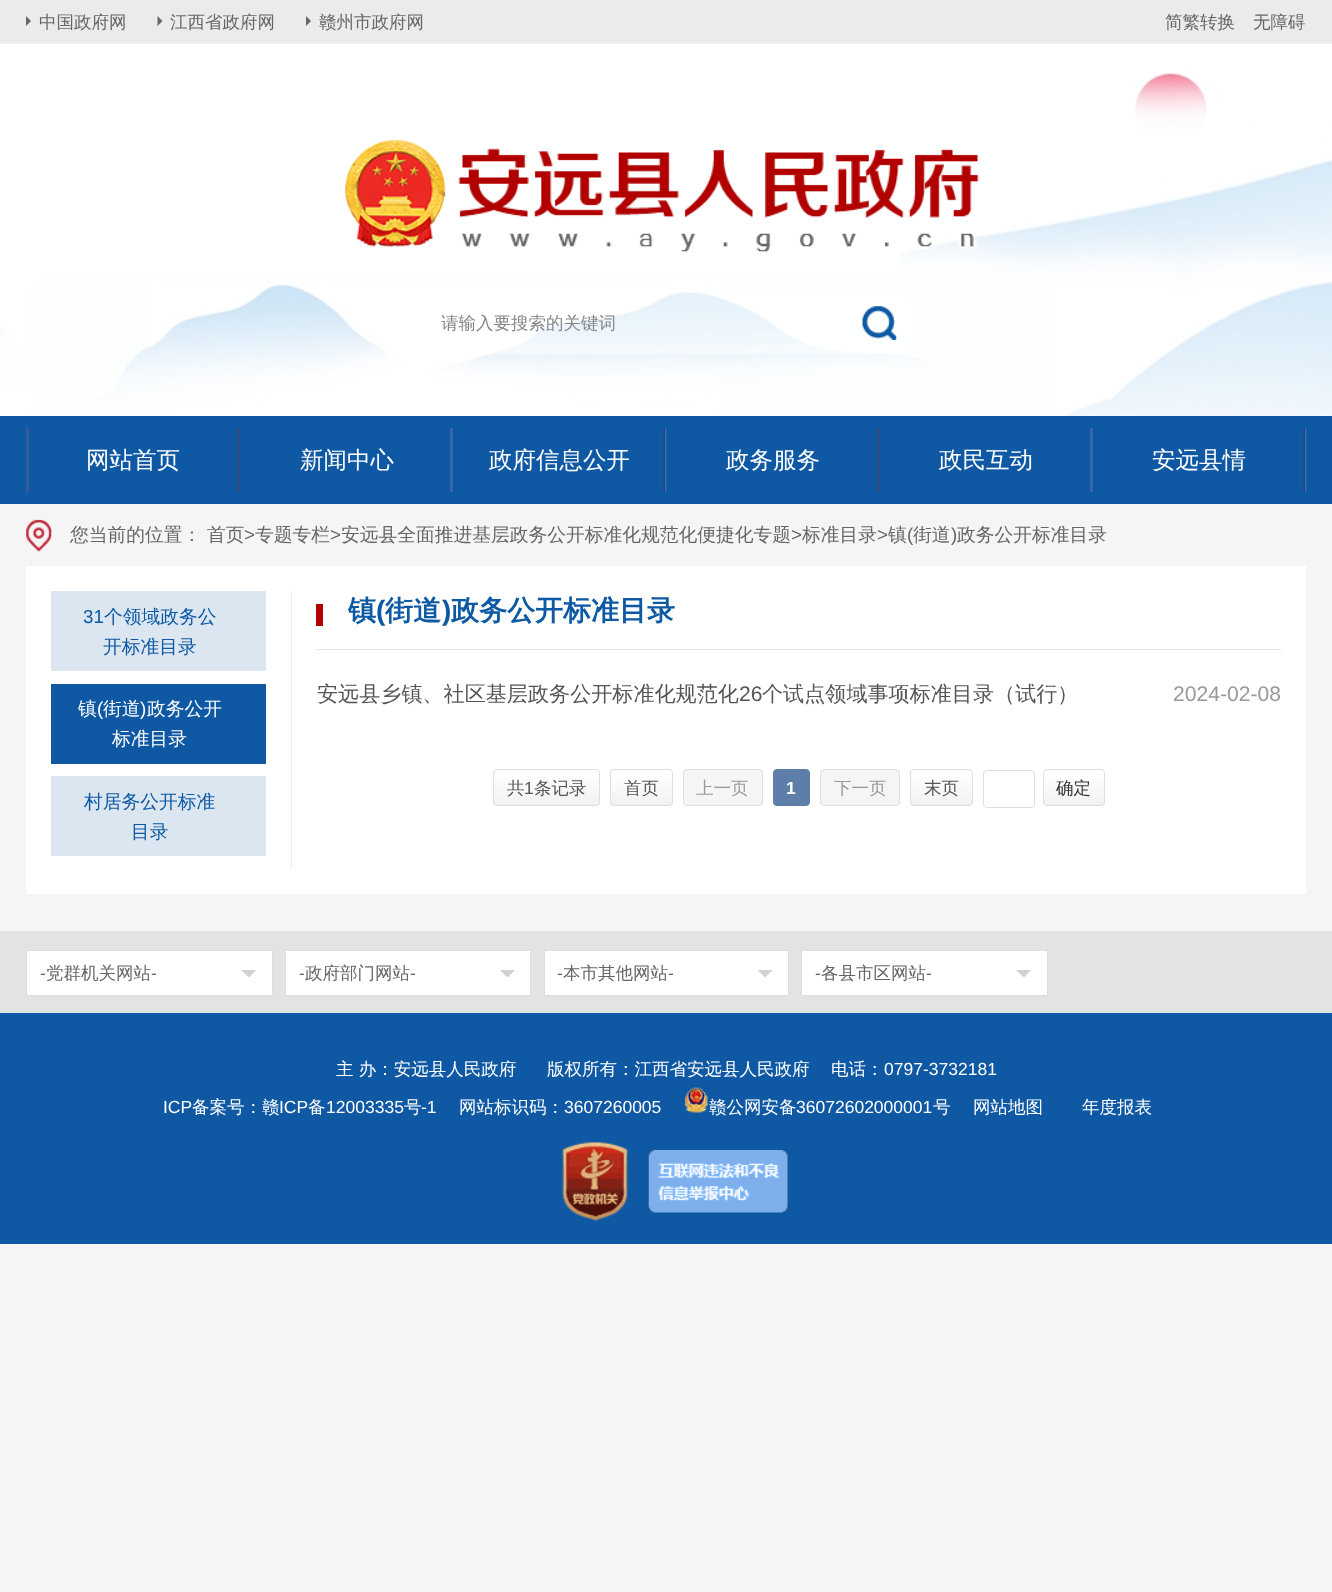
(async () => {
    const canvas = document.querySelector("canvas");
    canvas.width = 1332;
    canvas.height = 1592;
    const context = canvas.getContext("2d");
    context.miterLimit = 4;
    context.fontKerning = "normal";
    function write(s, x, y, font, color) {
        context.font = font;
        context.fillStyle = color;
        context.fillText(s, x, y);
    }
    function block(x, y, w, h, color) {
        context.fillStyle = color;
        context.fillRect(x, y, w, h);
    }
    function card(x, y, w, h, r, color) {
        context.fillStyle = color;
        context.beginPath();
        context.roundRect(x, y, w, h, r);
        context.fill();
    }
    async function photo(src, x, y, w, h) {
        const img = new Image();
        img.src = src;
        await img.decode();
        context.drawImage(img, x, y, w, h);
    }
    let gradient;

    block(0, 0, 1332, 1592, "rgb(245, 245, 245)");
    block(0, 0, 1332, 44, "rgb(235, 235, 235)");
    context.fillStyle = "rgb(102, 102, 102)";
    context.beginPath();
    context.moveTo(26, 26);
    context.lineTo(26, 16);
    context.lineTo(31, 21);
    context.closePath();
    context.fill();
    write("中国政府网", 39, 28, "500 17.5px WenQuanYi Zen Hei", "rgb(102, 102, 102)");
    context.beginPath();
    context.moveTo(157.5, 26);
    context.lineTo(157.5, 16);
    context.lineTo(162.5, 21);
    context.closePath();
    context.fill();
    write("江西省政府网", 170, 28, "500 17.5px WenQuanYi Zen Hei", "rgb(102, 102, 102)");
    context.beginPath();
    context.moveTo(306, 26);
    context.lineTo(306, 16);
    context.lineTo(311, 21);
    context.closePath();
    context.fill();
    write("赣州市政府网", 319, 28, "500 17.5px WenQuanYi Zen Hei", "rgb(102, 102, 102)");
    write("简繁转换", 1165, 28, "500 17.5px WenQuanYi Zen Hei", "rgb(102, 102, 102)");
    write("无障碍", 1253, 28, "500 17.5px WenQuanYi Zen Hei", "rgb(102, 102, 102)");
    await photo("media/1.png", 0, 43, 1332, 373);
    await photo("media/2.png", 345, 140, 634, 112);
    card(416, 291, 500, 63, 28, "rgba(255, 255, 255, 0.5)");
    write("请输入要搜索的关键词", 441, 329, "500 17.5px WenQuanYi Zen Hei", "rgb(135, 135, 135)");
    await photo("media/3.png", 862, 306, 35, 34);
    block(0, 416, 1332, 88, "rgb(15, 89, 164)");
    block(26, 428, 3, 64, "rgb(52, 92, 153)");
    write("网站首页", 86, 468, "500 23.5px WenQuanYi Zen Hei", "rgb(255, 255, 255)");
    block(237, 428, 3, 64, "rgb(43, 79, 132)");
    write("新闻中心", 300, 468, "500 23.5px WenQuanYi Zen Hei", "rgb(255, 255, 255)");
    block(450, 428, 3, 64, "rgb(58, 102, 168)");
    write("政府信息公开", 489, 468, "500 23.5px WenQuanYi Zen Hei", "rgb(255, 255, 255)");
    await photo("media/4.png", 663, 428, 4, 64);
    write("政务服务", 726, 468, "500 23.5px WenQuanYi Zen Hei", "rgb(255, 255, 255)");
    block(877, 428, 3, 64, "rgb(43, 79, 132)");
    write("政民互动", 939, 468, "500 23.5px WenQuanYi Zen Hei", "rgb(255, 255, 255)");
    block(1090, 428, 3, 64, "rgb(58, 102, 168)");
    write("安远县情", 1152, 468, "500 23.5px WenQuanYi Zen Hei", "rgb(255, 255, 255)");
    await photo("media/4.png", 1303, 428, 4, 64);
    await photo("media/5.png", 26, 519, 26, 33);
    write("您当前的位置：", 70, 541, "500 18.75px WenQuanYi Zen Hei", "rgb(102, 102, 102)");
    write("首页", 207, 541, "500 18.75px WenQuanYi Zen Hei", "rgb(102, 102, 102)");
    write(">", 244, 541, "18.75px Liberation Sans", "rgb(102, 102, 102)");
    write("专题专栏", 255, 541, "500 18.75px WenQuanYi Zen Hei", "rgb(102, 102, 102)");
    write(">", 330, 541, "18.75px Liberation Sans", "rgb(102, 102, 102)");
    write("安远县全面推进基层政务公开标准化规范化便捷化专题", 341, 541, "500 18.75px WenQuanYi Zen Hei", "rgb(102, 102, 102)");
    write(">", 791, 541, "18.75px Liberation Sans", "rgb(102, 102, 102)");
    write("标准目录", 802, 541, "500 18.75px WenQuanYi Zen Hei", "rgb(102, 102, 102)");
    write(">", 877, 541, "18.75px Liberation Sans", "rgb(102, 102, 102)");
    write("镇", 888, 541, "500 18.75px WenQuanYi Zen Hei", "rgb(102, 102, 102)");
    write("(", 907, 541, "18.75px Liberation Sans", "rgb(102, 102, 102)");
    write("街道", 913, 541, "500 18.75px WenQuanYi Zen Hei", "rgb(102, 102, 102)");
    write(")", 951, 541, "18.75px Liberation Sans", "rgb(102, 102, 102)");
    write("政务公开标准目录", 957, 541, "500 18.75px WenQuanYi Zen Hei", "rgb(102, 102, 102)");
    block(26, 566, 1280, 328, "rgb(255, 255, 255)");
    block(51, 591, 215, 80, "rgb(219, 230, 241)");
    write("31", 83, 623, "18.75px Liberation Sans", "rgb(13, 89, 164)");
    write("个领域政务公", 104, 623, "500 18.75px WenQuanYi Zen Hei", "rgb(13, 89, 164)");
    write("开标准目录", 103, 653, "500 18.75px WenQuanYi Zen Hei", "rgb(13, 89, 164)");
    block(51, 684, 215, 80, "rgb(15, 89, 164)");
    write("镇", 78, 715, "500 18.75px WenQuanYi Zen Hei", "rgb(255, 255, 255)");
    write("(", 97, 715, "18.75px Liberation Sans", "rgb(255, 255, 255)");
    write("街道", 103, 715, "500 18.75px WenQuanYi Zen Hei", "rgb(255, 255, 255)");
    write(")", 140, 715, "18.75px Liberation Sans", "rgb(255, 255, 255)");
    write("政务公开", 147, 715, "500 18.75px WenQuanYi Zen Hei", "rgb(255, 255, 255)");
    write("标准目录", 112, 745, "500 18.75px WenQuanYi Zen Hei", "rgb(255, 255, 255)");
    block(51, 776, 215, 80, "rgb(219, 230, 241)");
    write("村居务公开标准", 84, 808, "500 18.75px WenQuanYi Zen Hei", "rgb(13, 89, 164)");
    write("目录", 131, 838, "500 18.75px WenQuanYi Zen Hei", "rgb(13, 89, 164)");
    block(291, 591, 1, 278, "rgb(238, 238, 238)");
    block(316, 649, 965, 1, "rgb(229, 229, 229)");
    block(316, 604, 7, 22, "rgb(178, 0, 0)");
    write("镇", 348, 620, "bold 28px WenQuanYi Zen Hei", "rgb(13, 89, 164)");
    write("(", 376, 620, "bold 28px Liberation Sans", "rgb(13, 89, 164)");
    write("街道", 385, 620, "bold 28px WenQuanYi Zen Hei", "rgb(13, 89, 164)");
    write(")", 442, 620, "bold 28px Liberation Sans", "rgb(13, 89, 164)");
    write("政务公开标准目录", 451, 620, "bold 28px WenQuanYi Zen Hei", "rgb(13, 89, 164)");
    write("安远县乡镇、社区基层政务公开标准化规范化", 317, 701, "500 21.1px WenQuanYi Zen Hei", "rgb(85, 85, 85)");
    write("26", 739, 701, "21.1px Liberation Sans", "rgb(85, 85, 85)");
    write("个试点领域事项标准目录（试行）", 762, 701, "500 21.1px WenQuanYi Zen Hei", "rgb(85, 85, 85)");
    write("2024-02-08", 1173, 701, "21.1px Liberation Sans", "rgb(153, 153, 153)");
    context.save();
    context.beginPath();
    context.roundRect(493, 769, 107, 37, 4);
    context.clip();
    gradient = context.createLinearGradient(546, 770, 546, 805);
    gradient.addColorStop(0.1, "rgb(255, 255, 255)");
    gradient.addColorStop(1, "rgb(241, 241, 241)");
    context.fillStyle = gradient;
    context.fillRect(493, 770, 107, 35);
    context.restore();
    context.beginPath();
    context.roundRect(493.5, 769.5, 106, 36, 3.5);
    context.strokeStyle = "rgb(223, 223, 223)";
    context.stroke();
    write("共", 507, 794, "500 17.5px WenQuanYi Zen Hei", "rgb(85, 85, 85)");
    write("1", 524, 794, "17.5px Liberation Sans", "rgb(85, 85, 85)");
    write("条记录", 534, 794, "500 17.5px WenQuanYi Zen Hei", "rgb(85, 85, 85)");
    context.save();
    context.beginPath();
    context.roundRect(610, 769, 63, 37, 4);
    context.clip();
    gradient = context.createLinearGradient(641, 770, 641, 805);
    gradient.addColorStop(0.1, "rgb(255, 255, 255)");
    gradient.addColorStop(1, "rgb(241, 241, 241)");
    context.fillStyle = gradient;
    context.fillRect(610, 770, 63, 35);
    context.restore();
    context.beginPath();
    context.roundRect(610.5, 769.5, 62, 36, 3.5);
    context.stroke();
    write("首页", 624, 794, "500 17.5px WenQuanYi Zen Hei", "rgb(85, 85, 85)");
    context.fillStyle = "rgb(245, 245, 245)";
    context.beginPath();
    context.roundRect(683.5, 769.5, 79, 36, 3.5);
    context.fill();
    context.stroke();
    write("上一页", 696, 794, "500 17.5px WenQuanYi Zen Hei", "rgb(153, 153, 153)");
    context.fillStyle = "rgb(93, 126, 169)";
    context.beginPath();
    context.roundRect(773.5, 769.5, 36, 36, 3.5);
    context.fill();
    context.strokeStyle = "rgb(93, 126, 169)";
    context.stroke();
    write("1", 786, 794, "bold 17.5px Liberation Sans", "rgb(255, 255, 255)");
    context.fillStyle = "rgb(245, 245, 245)";
    context.beginPath();
    context.roundRect(820.5, 769.5, 79, 36, 3.5);
    context.fill();
    context.strokeStyle = "rgb(223, 223, 223)";
    context.stroke();
    write("下一页", 834, 794, "500 17.5px WenQuanYi Zen Hei", "rgb(153, 153, 153)");
    context.save();
    context.beginPath();
    context.roundRect(910, 769, 63, 37, 4);
    context.clip();
    gradient = context.createLinearGradient(941, 770, 941, 805);
    gradient.addColorStop(0.1, "rgb(255, 255, 255)");
    gradient.addColorStop(1, "rgb(241, 241, 241)");
    context.fillStyle = gradient;
    context.fillRect(910, 770, 63, 35);
    context.restore();
    context.beginPath();
    context.roundRect(910.5, 769.5, 62, 36, 3.5);
    context.stroke();
    write("末页", 924, 794, "500 17.5px WenQuanYi Zen Hei", "rgb(85, 85, 85)");
    context.beginPath();
    context.roundRect(983.5, 770.5, 51, 37, 3.5);
    context.stroke();
    context.save();
    context.beginPath();
    context.roundRect(1043, 769, 62, 37, 4);
    context.clip();
    gradient = context.createLinearGradient(1074, 770, 1074, 805);
    gradient.addColorStop(0.1, "rgb(255, 255, 255)");
    gradient.addColorStop(1, "rgb(241, 241, 241)");
    context.fillStyle = gradient;
    context.fillRect(1043, 770, 62, 35);
    context.restore();
    context.beginPath();
    context.roundRect(1043.5, 769.5, 61, 36, 3.5);
    context.stroke();
    write("确定", 1056, 794, "500 17.5px WenQuanYi Zen Hei", "rgb(51, 51, 51)");
    block(0, 931, 1332, 82, "rgb(227, 227, 227)");
    context.fillStyle = "rgb(255, 255, 255)";
    context.beginPath();
    context.rect(26.5, 950.5, 246, 45);
    context.fill();
    context.strokeStyle = "rgb(221, 221, 221)";
    context.stroke();
    write("-", 40, 979, "17.5px Liberation Sans", "rgb(102, 102, 102)");
    write("党群机关网站", 46, 979, "500 17.5px WenQuanYi Zen Hei", "rgb(102, 102, 102)");
    write("-", 151, 979, "17.5px Liberation Sans", "rgb(102, 102, 102)");
    context.fillStyle = "rgb(209, 209, 209)";
    context.beginPath();
    context.moveTo(241, 970);
    context.lineTo(256, 970);
    context.lineTo(249, 977.5);
    context.closePath();
    context.fill();
    context.fillStyle = "rgb(255, 255, 255)";
    context.beginPath();
    context.rect(285.5, 950.5, 245, 45);
    context.fill();
    context.stroke();
    write("-", 299, 979, "17.5px Liberation Sans", "rgb(102, 102, 102)");
    write("政府部门网站", 305, 979, "500 17.5px WenQuanYi Zen Hei", "rgb(102, 102, 102)");
    write("-", 410, 979, "17.5px Liberation Sans", "rgb(102, 102, 102)");
    context.fillStyle = "rgb(209, 209, 209)";
    context.beginPath();
    context.moveTo(500, 970);
    context.lineTo(515, 970);
    context.lineTo(507.5, 977.5);
    context.closePath();
    context.fill();
    context.fillStyle = "rgb(255, 255, 255)";
    context.beginPath();
    context.rect(544.5, 950.5, 244, 45);
    context.fill();
    context.stroke();
    write("-", 557, 979, "17.5px Liberation Sans", "rgb(102, 102, 102)");
    write("本市其他网站", 563, 979, "500 17.5px WenQuanYi Zen Hei", "rgb(102, 102, 102)");
    write("-", 668, 979, "17.5px Liberation Sans", "rgb(102, 102, 102)");
    context.fillStyle = "rgb(209, 209, 209)";
    context.beginPath();
    context.moveTo(757.5, 970);
    context.lineTo(772.5, 970);
    context.lineTo(765, 977.5);
    context.closePath();
    context.fill();
    context.fillStyle = "rgb(255, 255, 255)";
    context.beginPath();
    context.rect(801.5, 950.5, 246, 45);
    context.fill();
    context.stroke();
    write("-", 815, 979, "17.5px Liberation Sans", "rgb(102, 102, 102)");
    write("各县市区网站", 821, 979, "500 17.5px WenQuanYi Zen Hei", "rgb(102, 102, 102)");
    write("-", 926, 979, "17.5px Liberation Sans", "rgb(102, 102, 102)");
    context.fillStyle = "rgb(209, 209, 209)";
    context.beginPath();
    context.moveTo(1016, 970);
    context.lineTo(1031, 970);
    context.lineTo(1024, 977.5);
    context.closePath();
    context.fill();
    block(0, 1013, 1332, 231, "rgb(15, 89, 164)");
    write("主 办：安远县人民政府", 336, 1075, "500 17.5px WenQuanYi Zen Hei", "rgb(255, 255, 255)");
    write("版权所有：江西省安远县人民政府", 547, 1075, "500 17.5px WenQuanYi Zen Hei", "rgb(255, 255, 255)");
    write("电话：", 831, 1075, "500 17.5px WenQuanYi Zen Hei", "rgb(255, 255, 255)");
    write("0797-3732181", 884, 1075, "17.5px Liberation Sans", "rgb(255, 255, 255)");
    write("ICP", 163, 1113, "17.5px Liberation Sans", "rgb(255, 255, 255)");
    write("备案号：赣", 192, 1113, "500 17.5px WenQuanYi Zen Hei", "rgb(255, 255, 255)");
    write("ICP", 279, 1113, "17.5px Liberation Sans", "rgb(255, 255, 255)");
    write("备", 308, 1113, "500 17.5px WenQuanYi Zen Hei", "rgb(255, 255, 255)");
    write("12003335", 326, 1113, "17.5px Liberation Sans", "rgb(255, 255, 255)");
    write("号", 404, 1113, "500 17.5px WenQuanYi Zen Hei", "rgb(255, 255, 255)");
    write("-1", 421, 1113, "17.5px Liberation Sans", "rgb(255, 255, 255)");
    write("网站标识码：", 459, 1113, "500 17.5px WenQuanYi Zen Hei", "rgb(255, 255, 255)");
    write("3607260005", 564, 1113, "17.5px Liberation Sans", "rgb(255, 255, 255)");
    await photo("media/6.png", 684, 1087, 24, 26);
    write("赣公网安备", 709, 1113, "500 17.5px WenQuanYi Zen Hei", "rgb(255, 255, 255)");
    write("36072602000001", 796, 1113, "17.5px Liberation Sans", "rgb(255, 255, 255)");
    write("号", 933, 1113, "500 17.5px WenQuanYi Zen Hei", "rgb(255, 255, 255)");
    write("网站地图", 973, 1113, "500 17.5px WenQuanYi Zen Hei", "rgb(255, 255, 255)");
    write("年度报表", 1082, 1113, "500 17.5px WenQuanYi Zen Hei", "rgb(255, 255, 255)");
    await photo("media/7.png", 562, 1141, 66, 81);
    await photo("media/8.png", 648, 1150, 140, 63);
})();
